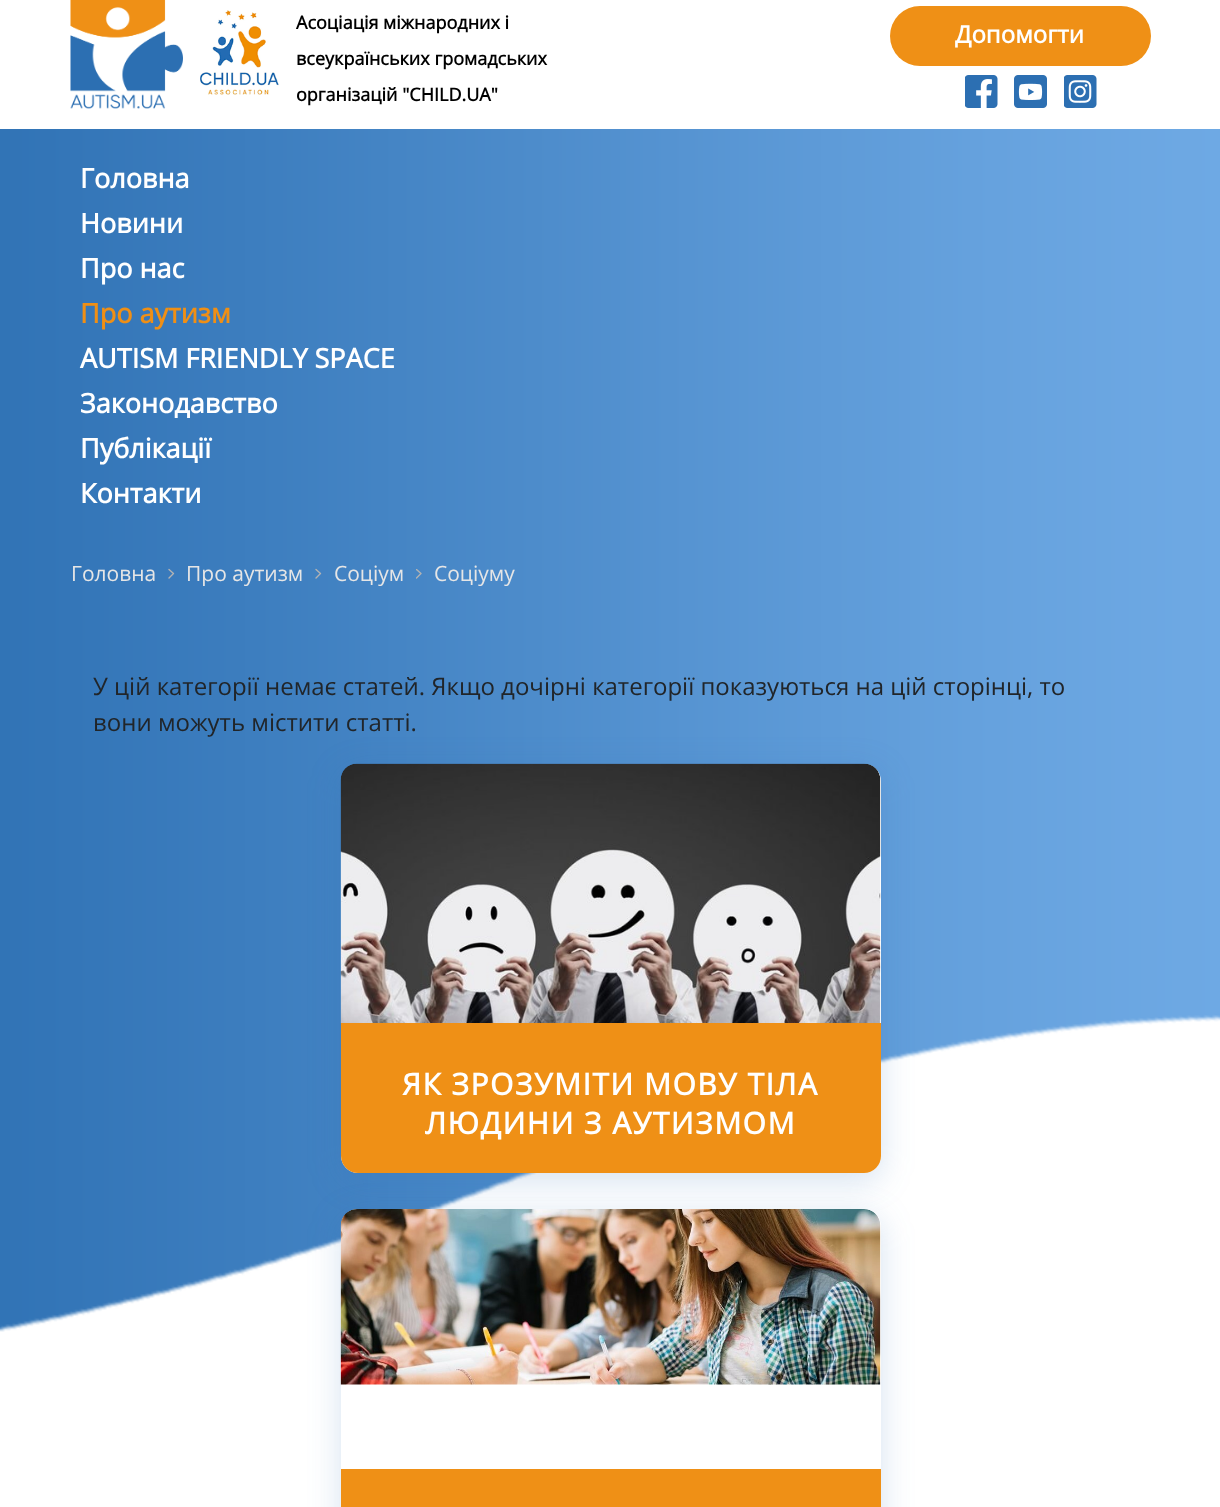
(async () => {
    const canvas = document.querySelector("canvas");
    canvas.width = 1220;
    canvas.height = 1507;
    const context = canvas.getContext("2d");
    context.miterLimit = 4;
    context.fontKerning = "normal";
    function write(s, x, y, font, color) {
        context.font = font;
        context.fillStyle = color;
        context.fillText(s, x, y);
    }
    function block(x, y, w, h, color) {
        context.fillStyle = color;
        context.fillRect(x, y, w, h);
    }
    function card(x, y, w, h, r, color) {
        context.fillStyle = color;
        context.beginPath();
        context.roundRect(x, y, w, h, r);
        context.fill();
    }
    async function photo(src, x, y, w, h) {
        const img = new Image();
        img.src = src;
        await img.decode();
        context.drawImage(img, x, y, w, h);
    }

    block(0, 0, 1220, 1507, "rgb(255, 255, 255)");
    await photo("media/1.png", 70, 0, 113, 109);
    await photo("media/2.png", 200, 10, 79, 85);
    write("Асоціація міжнародних і", 296, 29, "bold 18px Open Sans", "rgb(0, 0, 0)");
    write("всеукраїнських громадських", 296, 65, "bold 18px Open Sans", "rgb(0, 0, 0)");
    write("організацій \"CHILD.UA\"", 296, 101, "bold 18px Open Sans", "rgb(0, 0, 0)");
    card(890, 6, 261, 60, 30, "rgb(239, 144, 22)");
    write("Допомогти", 955, 43, "bold 24px Open Sans", "rgb(255, 255, 255)");
    await photo("media/3.png", 965, 75, 33, 33);
    await photo("media/4.png", 1014, 75, 33, 33);
    await photo("media/5.png", 1064, 75, 33, 33);
    await photo("media/6.png", 0, 129, 1220, 1203);
    write("Головна", 80, 188, "bold 27px Open Sans", "rgb(255, 255, 255)");
    write("Новини", 80, 233, "bold 27px Open Sans", "rgb(255, 255, 255)");
    write("Про нас", 80, 278, "bold 27px Open Sans", "rgb(255, 255, 255)");
    write("Про аутизм", 80, 323, "bold 27px Open Sans", "rgb(239, 143, 21)");
    write("AUTISM FRIENDLY SPACE", 80, 368, "bold 27px Open Sans", "rgb(255, 255, 255)");
    write("Законодавство", 80, 413, "bold 27px Open Sans", "rgb(255, 255, 255)");
    write("Публiкацiї", 80, 458, "bold 27px Open Sans", "rgb(255, 255, 255)");
    write("Контакти", 80, 503, "bold 27px Open Sans", "rgb(255, 255, 255)");
    write("Головна", 71, 581, "21px Open Sans", "rgb(230, 230, 230)");
    context.beginPath();
    context.moveTo(169, 569.5);
    context.lineTo(173.5, 573.5);
    context.lineTo(169, 578);
    context.strokeStyle = "rgb(179, 179, 179)";
    context.lineWidth = 1.4;
    context.lineCap = "round";
    context.lineJoin = "round";
    context.stroke();
    write("Про аутизм", 186, 581, "21px Open Sans", "rgb(230, 230, 230)");
    context.beginPath();
    context.moveTo(316, 569.5);
    context.lineTo(320.5, 573.5);
    context.lineTo(316, 578);
    context.stroke();
    write("Соцiум", 334, 581, "21px Open Sans", "rgb(230, 230, 230)");
    context.save();
    context.beginPath();
    context.rect(416, 569, 6, 10);
    context.clip();
    context.beginPath();
    context.moveTo(416.5, 569.5);
    context.lineTo(421, 573.5);
    context.lineTo(416.5, 578);
    context.stroke();
    context.restore();
    write("Соціуму", 434, 581, "21px Open Sans", "rgb(230, 230, 230)");
    write("У цій категорії немає статей. Якщо дочірні категорії показуються на цій сторінці, то", 93, 695, "24px Open Sans", "rgb(33, 37, 41)");
    write("вони можуть містити статті.", 93, 731, "24px Open Sans", "rgb(33, 37, 41)");
    context.fillStyle = "rgba(44, 111, 178, 0.2)";
    context.filter = "blur(16.5px)";
    context.beginPath();
    context.roundRect(341, 771, 540, 410, 17);
    context.fill();
    context.filter = "none";
    card(341, 764, 540, 409, 17, "rgb(255, 255, 255)");
    await photo("media/7.png", 340, 763, 541, 260);
    context.fillStyle = "rgb(239, 144, 22)";
    context.beginPath();
    context.roundRect(341, 1023, 540, 150, [0, 0, 17, 17]);
    context.fill();
    context.letterSpacing = "1.5px";
    write("ЯК ЗРОЗУМІТИ МОВУ ТІЛА", 402, 1095, "bold 30px Open Sans", "rgb(255, 255, 255)");
    write("ЛЮДИНИ З АУТИЗМОМ", 425, 1134, "bold 30px Open Sans", "rgb(255, 255, 255)");
    context.fillStyle = "rgba(44, 111, 178, 0.2)";
    context.filter = "blur(16.5px)";
    context.beginPath();
    context.roundRect(341, 1217, 540, 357, 17);
    context.fill();
    context.filter = "none";
    card(341, 1209, 540, 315, 17, "rgb(255, 255, 255)");
    await photo("media/8.png", 340, 1209, 541, 176);
    block(341, 1469, 540, 38, "rgb(239, 144, 22)");
})();
